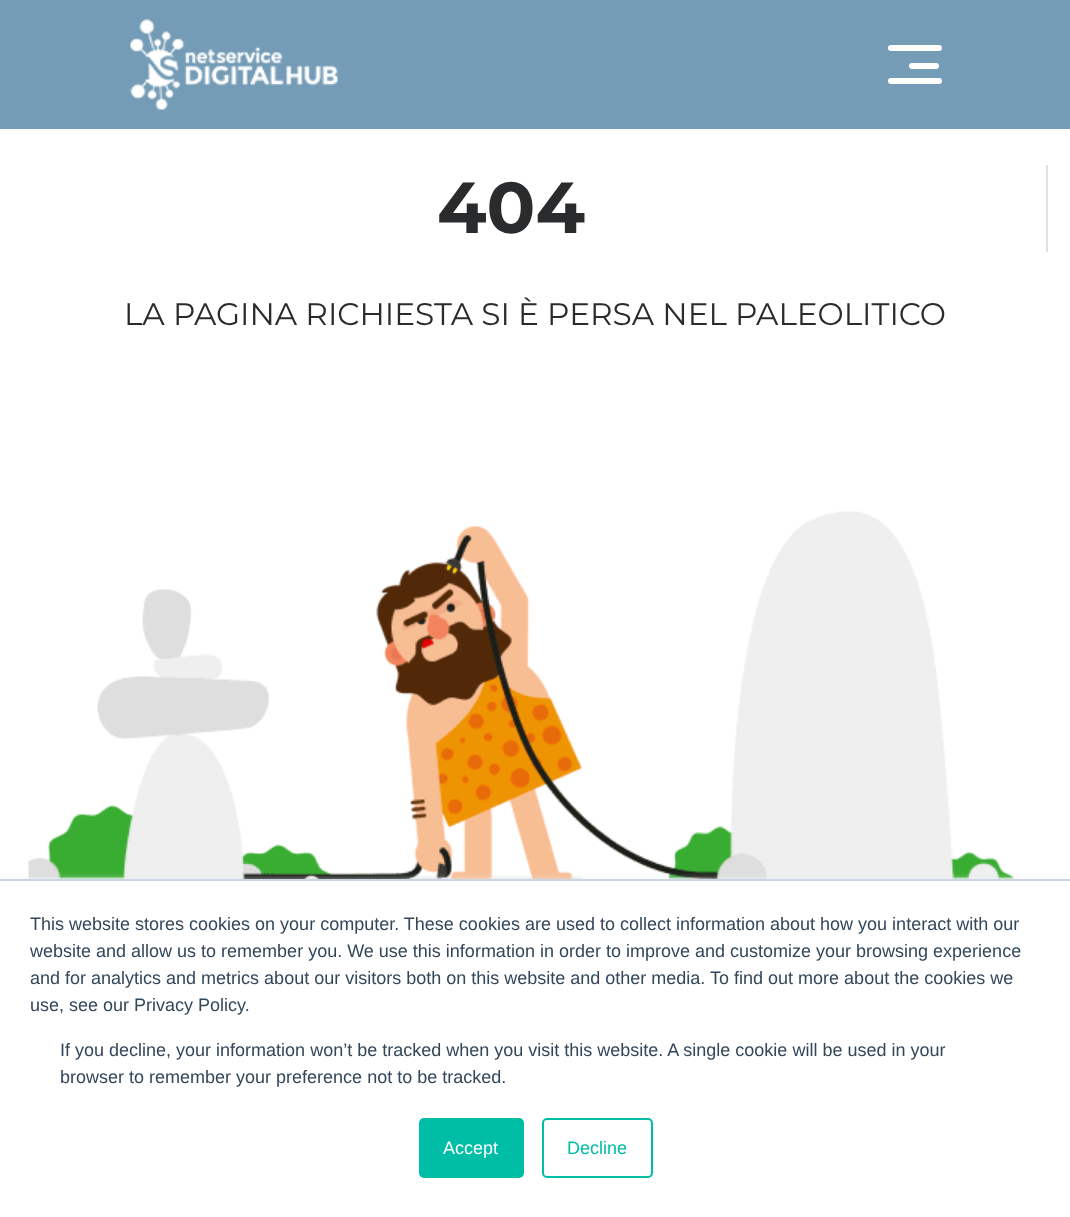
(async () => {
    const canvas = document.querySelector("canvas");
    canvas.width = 1070;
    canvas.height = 1217;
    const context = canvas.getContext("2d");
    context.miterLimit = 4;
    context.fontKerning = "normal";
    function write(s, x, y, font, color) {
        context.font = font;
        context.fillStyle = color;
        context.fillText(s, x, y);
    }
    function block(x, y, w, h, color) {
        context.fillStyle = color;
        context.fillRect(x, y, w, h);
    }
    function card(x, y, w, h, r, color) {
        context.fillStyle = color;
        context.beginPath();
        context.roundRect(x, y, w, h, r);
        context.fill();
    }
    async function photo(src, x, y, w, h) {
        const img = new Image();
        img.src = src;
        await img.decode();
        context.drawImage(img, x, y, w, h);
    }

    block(0, 0, 1070, 1217, "rgb(255, 255, 255)");
    block(0, 0, 1070, 129, "rgb(117, 156, 182)");
    await photo("media/1.png", 130, 19, 208, 91);
    card(888, 45, 54, 6, 3, "rgb(255, 255, 255)");
    card(909, 63, 30, 6, 3, "rgb(255, 255, 255)");
    card(888, 78, 54, 6, 3, "rgb(255, 255, 255)");
    block(1046, 165, 2, 87, "rgb(222, 226, 230)");
    write("404", 437, 233, "bold 72px Montserrat", "rgb(41, 43, 44)");
    write("LA PAGINA RICHIESTA SI È PERSA NEL PALEOLITICO", 124, 325, "31.2px Montserrat", "rgb(41, 43, 44)");
    await photo("media/2.png", 28, 511, 987, 368);
    context.fillStyle = "rgb(234, 240, 246)";
    context.filter = "blur(4px)";
    context.beginPath();
    context.rect(0, 881, 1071, 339);
    context.fill();
    context.filter = "none";
    block(0, 881, 1070, 336, "rgb(255, 255, 255)");
    block(0, 879, 1070, 2, "rgb(203, 214, 226)");
    write("This website stores cookies on your computer. These cookies are used to collect information about how you interact with our", 30, 930, "18px Liberation Sans", "rgb(51, 71, 91)");
    write("website and allow us to remember you. We use this information in order to improve and customize your browsing experience", 30, 957, "18px Liberation Sans", "rgb(51, 71, 91)");
    write("and for analytics and metrics about our visitors both on this website and other media. To find out more about the cookies we", 30, 984, "18px Liberation Sans", "rgb(51, 71, 91)");
    write("use, see our Privacy Policy.", 30, 1011, "18px Liberation Sans", "rgb(51, 71, 91)");
    write("If you decline, your information won’t be tracked when you visit this website. A single cookie will be used in your", 60, 1056, "18px Liberation Sans", "rgb(51, 71, 91)");
    write("browser to remember your preference not to be tracked.", 60, 1083, "18px Liberation Sans", "rgb(51, 71, 91)");
    context.fillStyle = "rgb(0, 189, 165)";
    context.beginPath();
    context.roundRect(420, 1119, 103, 58, 4);
    context.fill();
    context.strokeStyle = "rgb(0, 189, 165)";
    context.lineWidth = 2;
    context.stroke();
    write("Accept", 443, 1154, "18px Liberation Sans", "rgb(255, 255, 255)");
    context.beginPath();
    context.roundRect(543, 1119, 109, 58, 4);
    context.stroke();
    write("Decline", 567, 1154, "18px Liberation Sans", "rgb(0, 189, 165)");
})();
